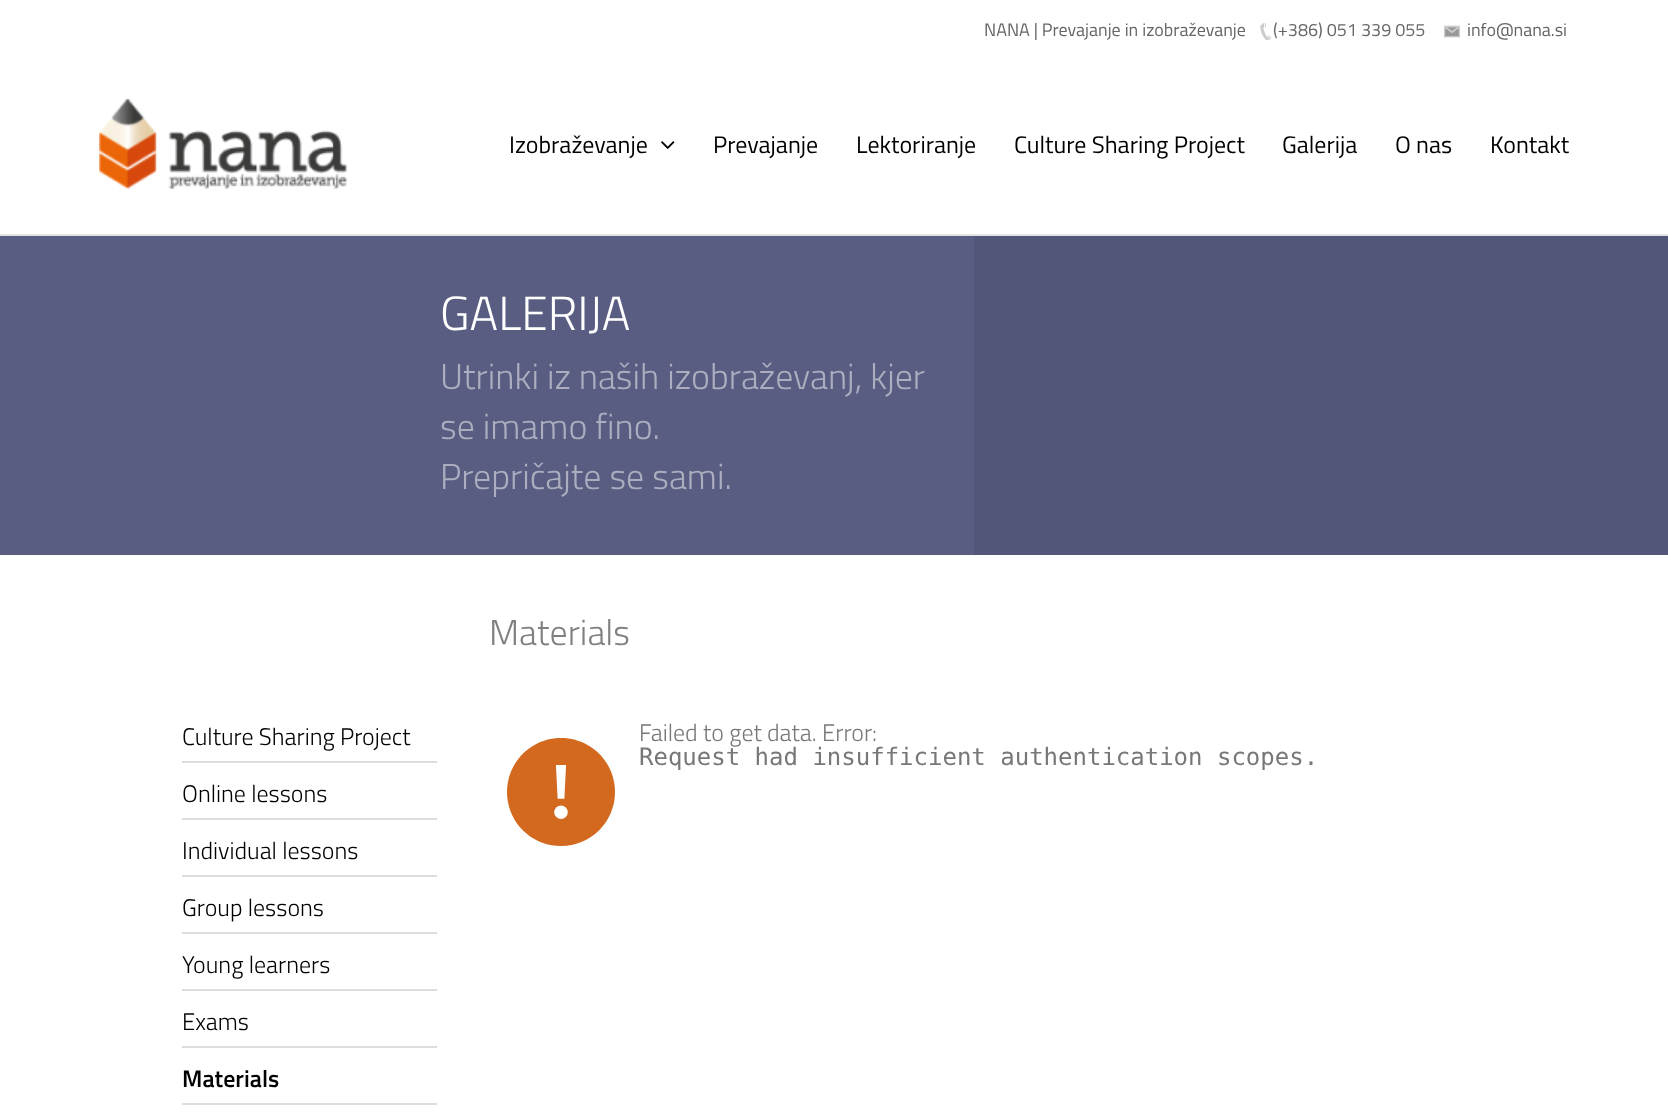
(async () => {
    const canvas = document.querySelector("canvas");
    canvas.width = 1668;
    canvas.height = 1112;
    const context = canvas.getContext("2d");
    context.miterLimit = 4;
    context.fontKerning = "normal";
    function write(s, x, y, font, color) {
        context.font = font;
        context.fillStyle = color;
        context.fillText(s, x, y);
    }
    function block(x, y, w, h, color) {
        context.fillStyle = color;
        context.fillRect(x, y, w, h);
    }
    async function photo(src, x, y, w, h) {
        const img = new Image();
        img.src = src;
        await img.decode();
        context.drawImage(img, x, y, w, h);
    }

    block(0, 0, 1668, 1112, "rgb(255, 255, 255)");
    write("NANA | Prevajanje in izobraževanje", 984, 36, "18px Titillium Web", "rgb(102, 102, 102)");
    await photo("media/1.png", 1260, 23, 12, 17);
    write("(+386) 051 339 055", 1273, 36, "18px Titillium Web", "rgb(102, 102, 102)");
    await photo("media/2.png", 1444, 25, 16, 13);
    write("info@nana.si", 1467, 36, "18px Titillium Web", "rgb(102, 102, 102)");
    block(0, 234, 1668, 2, "rgb(228, 228, 228)");
    await photo("media/3.png", 99, 99, 248, 90);
    write("Izobraževanje", 509, 153, "24px Titillium Web", "rgb(0, 0, 0)");
    await photo("media/4.png", 661, 141, 14, 8);
    write("Prevajanje", 713, 153, "24px Titillium Web", "rgb(0, 0, 0)");
    write("Lektoriranje", 856, 153, "24px Titillium Web", "rgb(0, 0, 0)");
    write("Culture Sharing Project", 1014, 153, "24px Titillium Web", "rgb(0, 0, 0)");
    write("Galerija", 1282, 153, "24px Titillium Web", "rgb(0, 0, 0)");
    write("O nas", 1395, 153, "24px Titillium Web", "rgb(0, 0, 0)");
    write("Kontakt", 1490, 153, "24px Titillium Web", "rgb(0, 0, 0)");
    block(974, 236, 694, 319, "rgb(82, 86, 120)");
    block(0, 236, 974, 319, "rgb(88, 93, 129)");
    write("GALERIJA", 440, 330, "300 48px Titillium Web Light", "rgb(255, 255, 255)");
    write("Utrinki iz naših izobraževanj, kjer", 440, 389, "300 36px Titillium Web Light", "rgb(172, 174, 192)");
    write("se imamo fino.", 440, 439, "300 36px Titillium Web Light", "rgb(172, 174, 192)");
    write("Prepričajte se sami.", 440, 489, "300 36px Titillium Web Light", "rgb(172, 174, 192)");
    write("Materials", 489, 645, "300 36px Titillium Web Light", "rgb(128, 128, 128)");
    await photo("media/5.png", 507, 738, 108, 108);
    write("Failed to get data. Error:", 639, 741, "300 24px Titillium Web Light", "rgb(119, 119, 119)");
    write("Request had insufficient authentication scopes.", 639, 765, "24px DejaVu Sans Mono", "rgb(119, 119, 119)");
    block(182, 761, 255, 2, "rgb(221, 221, 221)");
    write("Culture Sharing Project", 182, 745, "300 24px Titillium Web Light", "rgb(0, 0, 0)");
    block(182, 818, 255, 2, "rgb(221, 221, 221)");
    write("Online lessons", 182, 802, "300 24px Titillium Web Light", "rgb(0, 0, 0)");
    block(182, 875, 255, 2, "rgb(221, 221, 221)");
    write("Individual lessons", 182, 859, "300 24px Titillium Web Light", "rgb(0, 0, 0)");
    block(182, 932, 255, 2, "rgb(221, 221, 221)");
    write("Group lessons", 182, 916, "300 24px Titillium Web Light", "rgb(0, 0, 0)");
    block(182, 989, 255, 2, "rgb(221, 221, 221)");
    write("Young learners", 182, 973, "300 24px Titillium Web Light", "rgb(0, 0, 0)");
    block(182, 1046, 255, 2, "rgb(221, 221, 221)");
    write("Exams", 182, 1030, "300 24px Titillium Web Light", "rgb(0, 0, 0)");
    block(182, 1103, 255, 2, "rgb(221, 221, 221)");
    write("Materials", 182, 1087, "600 24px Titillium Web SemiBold", "rgb(0, 0, 0)");
})();
